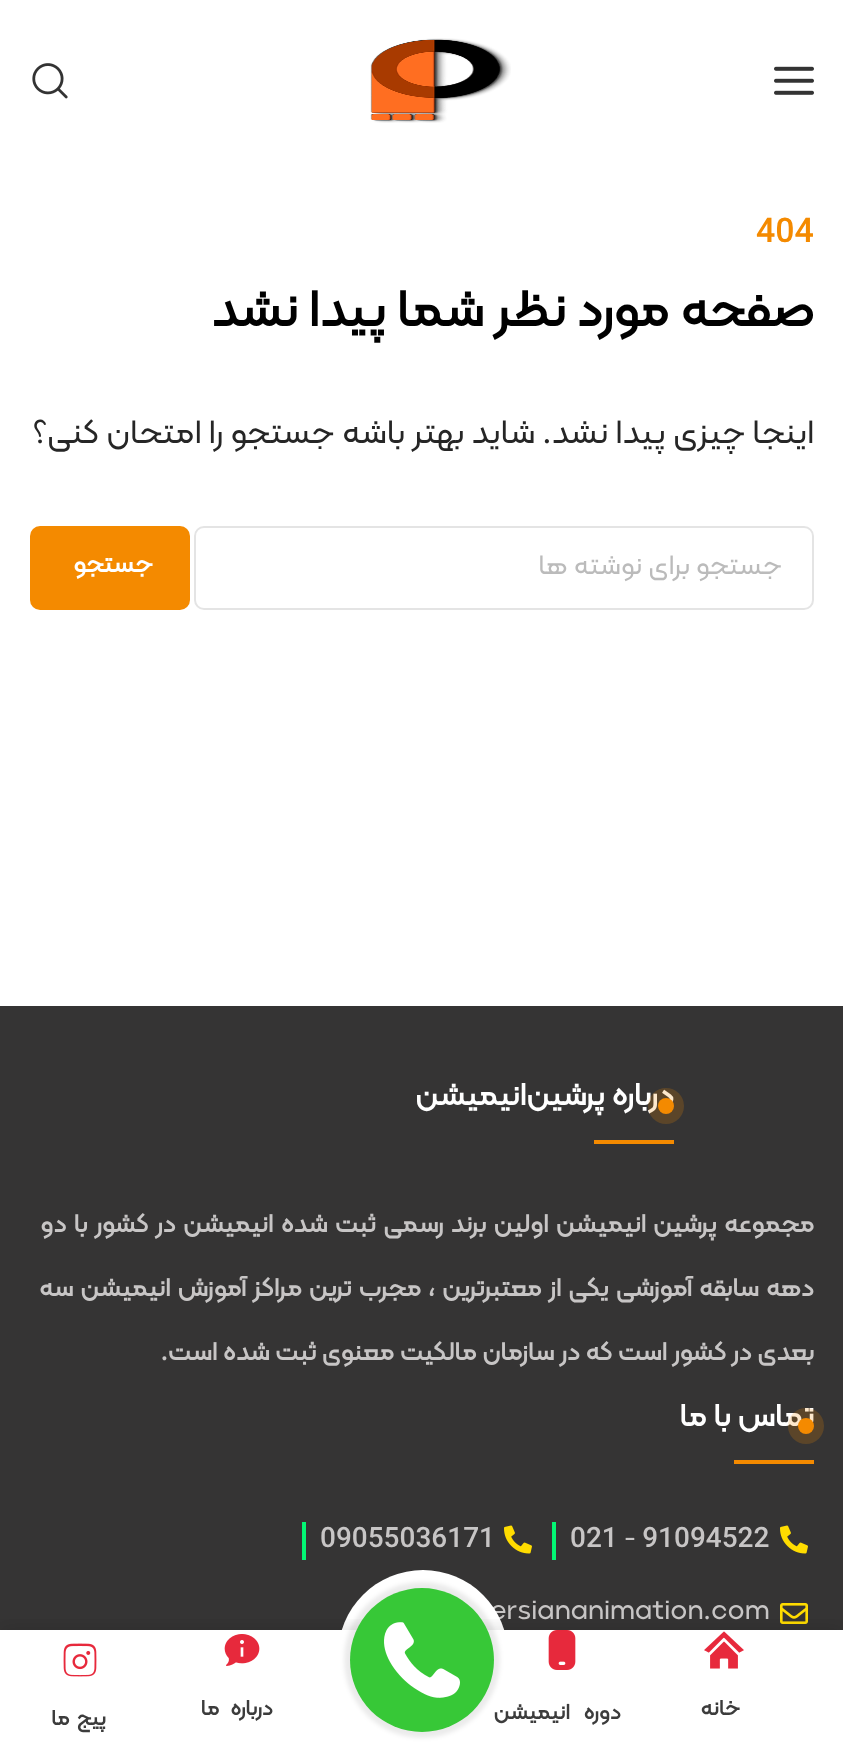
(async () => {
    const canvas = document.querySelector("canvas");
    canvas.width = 843;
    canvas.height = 1749;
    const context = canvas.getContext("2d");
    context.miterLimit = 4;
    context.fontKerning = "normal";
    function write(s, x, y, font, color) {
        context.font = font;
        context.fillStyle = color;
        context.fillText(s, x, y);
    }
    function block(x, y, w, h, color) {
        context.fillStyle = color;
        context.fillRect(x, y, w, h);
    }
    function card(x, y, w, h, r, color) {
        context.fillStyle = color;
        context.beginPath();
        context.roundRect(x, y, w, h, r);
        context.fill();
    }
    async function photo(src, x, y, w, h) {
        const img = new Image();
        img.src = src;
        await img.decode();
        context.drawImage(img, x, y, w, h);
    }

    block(0, 0, 843, 1749, "rgb(255, 255, 255)");
    await photo("media/1.png", 774, 66, 40, 29);
    await photo("media/2.png", 370, 38, 141, 85);
    await photo("media/3.png", 32, 63, 36, 36);
    write("404", 756, 242, "34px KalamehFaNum", "rgb(244, 138, 0)");
    context.direction = "rtl";
    write("صفحه مورد نظر شما پیدا نشد", 814, 326, "bold 52px KalamehFaNum", "rgb(0, 0, 0)");
    write("اینجا چیزی پیدا نشد. شاید بهتر باشه جستجو را امتحان کنی؟", 814, 443, "34px KalamehFaNum", "rgb(38, 38, 38)");
    context.beginPath();
    context.roundRect(195, 527, 618, 82, 9);
    context.strokeStyle = "rgb(228, 228, 228)";
    context.lineWidth = 2;
    context.stroke();
    write("جستجو برای نوشته ها", 782, 574, "28px KalamehFaNum", "rgb(187, 187, 187)");
    card(30, 526, 160, 84, 10, "rgb(244, 138, 0)");
    context.letterSpacing = "0.5px";
    write("جستجو", 153, 572, "bold 26px KalamehFaNum", "rgb(255, 255, 255)");
    block(0, 1006, 843, 624, "rgb(53, 52, 52)");
    context.letterSpacing = "0px";
    write("درباره پرشین‌انیمیشن", 674, 1105, "bold 32px KalamehFaNum", "rgb(255, 255, 255)");
    context.fillStyle = "rgba(244, 138, 0, 0.2)";
    context.beginPath();
    context.arc(666, 1106, 18, 0, Math.PI * 2);
    context.fill();
    context.fillStyle = "rgb(244, 138, 0)";
    context.beginPath();
    context.arc(666, 1106, 8, 0, Math.PI * 2);
    context.fill();
    block(594, 1140, 80, 4, "rgb(244, 138, 0)");
    context.wordSpacing = "1.75px";
    write("مجموعه پرشین‌", 814, 1232, "bold 26px KalamehFaNum", "rgb(199, 197, 197)");
    write("انیمیشن اولین برند رسمی ثبت شده انیمیشن در کشور با دو", 646, 1232, "bold 26px KalamehFaNum", "rgb(199, 197, 197)");
    context.wordSpacing = "1.5px";
    write("دهه سابقه آموزشی یکی از معتبرترین ، مجرب ترین مراکز آموزش‌ انیمیشن سه", 814, 1296, "bold 26px KalamehFaNum", "rgb(199, 197, 197)");
    context.wordSpacing = "0px";
    write("بعدی در کشور است که در سازمان مالکیت معنوی ثبت شده است.", 814, 1360, "bold 26px KalamehFaNum", "rgb(199, 197, 197)");
    write("تماس با ما", 814, 1426, "bold 32px KalamehFaNum", "rgb(255, 255, 255)");
    context.fillStyle = "rgba(244, 138, 0, 0.2)";
    context.beginPath();
    context.arc(806, 1426, 18, 0, Math.PI * 2);
    context.fill();
    context.fillStyle = "rgb(244, 138, 0)";
    context.beginPath();
    context.arc(806, 1426, 8, 0, Math.PI * 2);
    context.fill();
    block(734, 1460, 80, 4, "rgb(244, 138, 0)");
    await photo("media/4.png", 780, 1525, 28, 29);
    context.direction = "ltr";
    write("021 - 91094522", 570, 1547, "28px KalamehFaNum", "rgb(199, 197, 197)");
    block(552, 1522, 4, 38, "rgb(2, 247, 116)");
    await photo("media/4.png", 504, 1525, 28, 29);
    write("09055036171", 320, 1547, "28px KalamehFaNum", "rgb(199, 197, 197)");
    block(302, 1522, 4, 38, "rgb(2, 247, 116)");
    await photo("media/5.png", 780, 1603, 28, 21);
    write("ersiananimation.com", 490, 1619, "28px KalamehFaNum", "rgb(199, 197, 197)");
    context.fillStyle = "rgb(255, 255, 255)";
    context.beginPath();
    context.arc(423, 1655, 85, 0, Math.PI * 2);
    context.fill();
    context.save();
    context.beginPath();
    context.rect(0, 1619, 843, 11);
    context.clip();
    context.fillStyle = "rgba(0, 0, 0, 0.1)";
    context.filter = "blur(8px)";
    context.beginPath();
    context.rect(0, 1626, 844, 120);
    context.fill();
    context.filter = "none";
    context.restore();
    context.fillStyle = "rgba(0, 0, 0, 0.08)";
    context.filter = "blur(2px)";
    context.beginPath();
    context.roundRect(344, 1582, 156, 156, 78);
    context.fill();
    context.filter = "none";
    context.fillStyle = "rgb(55, 200, 55)";
    context.beginPath();
    context.arc(422, 1660, 72, 0, Math.PI * 2);
    context.fill();
    await photo("media/6.png", 384, 1622, 76, 76);
    await photo("media/7.png", 704, 1631, 40, 38);
    context.letterSpacing = "-1px";
    context.direction = "rtl";
    write("خانه", 740, 1715, "bold 22px KalamehFaNum", "rgb(60, 60, 60)");
    await photo("media/8.png", 548, 1630, 28, 40);
    context.wordSpacing = "10px";
    write("دوره انیمیشن", 621, 1719, "bold 22px KalamehFaNum", "rgb(60, 60, 60)");
    await photo("media/9.png", 224, 1634, 36, 32);
    context.wordSpacing = "7px";
    write("درباره ما", 273, 1715, "bold 22px KalamehFaNum", "rgb(60, 60, 60)");
    await photo("media/10.png", 63, 1643, 34, 34);
    context.wordSpacing = "3px";
    write("پیج ما", 106, 1725, "bold 22px KalamehFaNum", "rgb(60, 60, 60)");
})();
